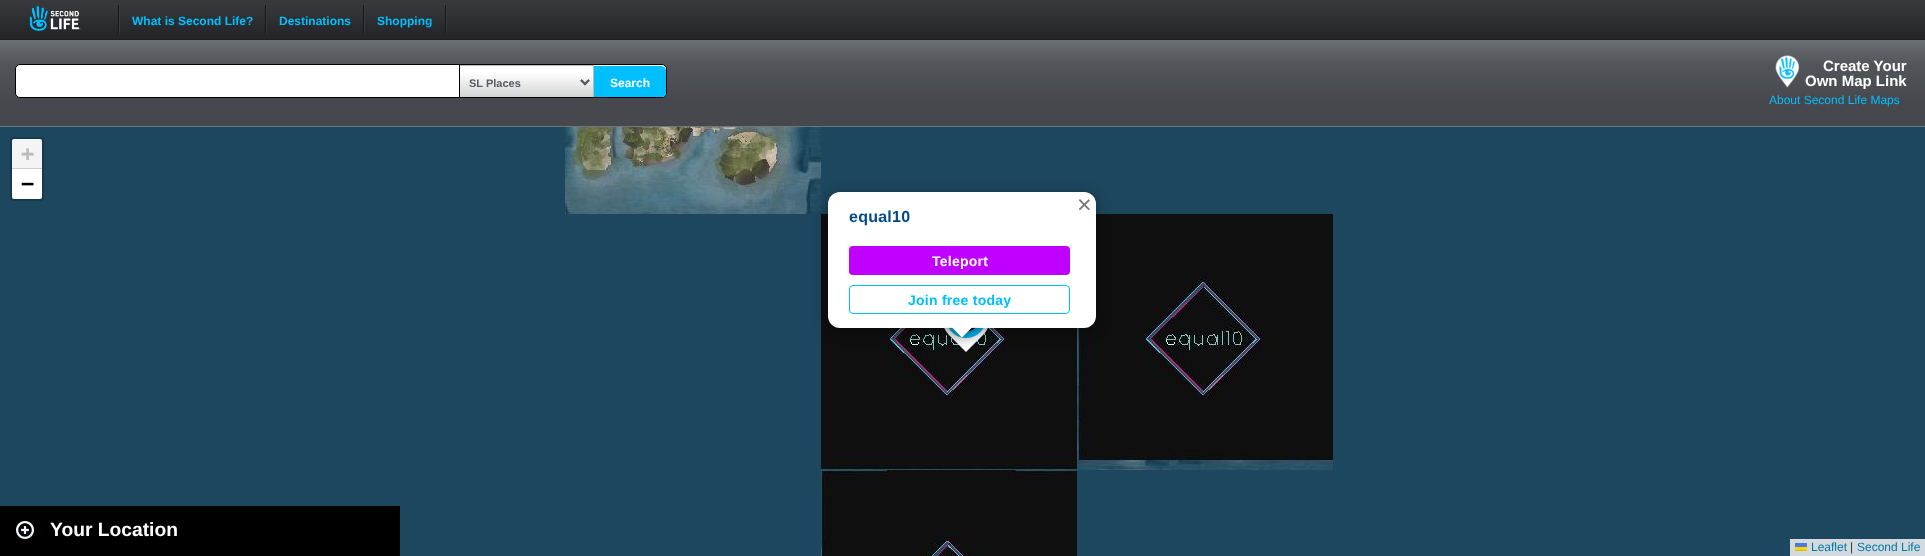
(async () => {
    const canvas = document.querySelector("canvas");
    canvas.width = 1925;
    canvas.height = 556;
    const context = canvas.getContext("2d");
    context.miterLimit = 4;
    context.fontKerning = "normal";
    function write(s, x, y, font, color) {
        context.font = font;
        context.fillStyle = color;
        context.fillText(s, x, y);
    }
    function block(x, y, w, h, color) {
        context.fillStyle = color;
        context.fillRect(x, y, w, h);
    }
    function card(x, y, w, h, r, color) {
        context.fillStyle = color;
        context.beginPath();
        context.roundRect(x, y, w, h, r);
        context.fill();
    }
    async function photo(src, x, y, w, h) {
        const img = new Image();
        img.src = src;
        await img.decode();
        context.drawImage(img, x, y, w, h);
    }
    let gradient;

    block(0, 0, 1925, 556, "rgb(29, 71, 95)");
    await photo("media/1.png", 0, 0, 1925, 40);
    await photo("media/2.png", 29, 6, 52, 25);
    block(119, 5, 1, 28, "rgb(58, 62, 66)");
    block(118, 5, 1, 28, "rgb(22, 22, 22)");
    write("What is Second Life?", 132, 25, "bold 12px Liberation Sans", "rgb(0, 191, 255)");
    block(266, 5, 1, 28, "rgb(58, 62, 66)");
    block(265, 5, 1, 28, "rgb(22, 22, 22)");
    write("Destinations", 279, 25, "bold 12px Liberation Sans", "rgb(0, 191, 255)");
    block(364, 5, 1, 28, "rgb(58, 62, 66)");
    block(363, 5, 1, 28, "rgb(22, 22, 22)");
    write("Shopping", 377, 25, "bold 12px Liberation Sans", "rgb(0, 191, 255)");
    block(446, 5, 1, 28, "rgb(58, 62, 66)");
    block(445, 5, 1, 28, "rgb(22, 22, 22)");
    gradient = context.createLinearGradient(0, 126, 0, 40);
    gradient.addColorStop(0.29, "rgb(71, 72, 77)");
    gradient.addColorStop(0.71, "rgb(81, 85, 89)");
    gradient.addColorStop(1, "rgb(107, 110, 115)");
    context.fillStyle = gradient;
    context.fillRect(0, 40, 1925, 86);
    block(0, 126, 1925, 1, "rgb(114, 119, 126)");
    context.fillStyle = "rgb(255, 255, 255)";
    context.beginPath();
    context.roundRect(15.5, 64.5, 651, 33, 4.5);
    context.fill();
    context.strokeStyle = "rgb(0, 0, 0)";
    context.stroke();
    await photo("media/3.png", 460, 66, 133, 31);
    block(459, 65, 135, 1, "rgb(187, 187, 187)");
    block(593, 65, 1, 32, "rgb(187, 187, 187)");
    block(459, 65, 1, 32, "rgb(0, 0, 0)");
    context.beginPath();
    context.moveTo(581, 80);
    context.lineTo(585, 84);
    context.lineTo(589, 80);
    context.strokeStyle = "rgb(89, 92, 98)";
    context.lineWidth = 2;
    context.stroke();
    write("SL Places", 469, 87, "bold 11px Liberation Sans", "rgb(89, 92, 98)");
    context.save();
    context.beginPath();
    context.roundRect(16, 65, 650, 32, 4);
    context.clip();
    context.fillStyle = "rgb(0, 191, 255)";
    context.beginPath();
    context.roundRect(594, 66, 72, 34, [0, 5, 5, 0]);
    context.fill();
    context.restore();
    write("Search", 610, 87, "bold 12px Liberation Sans", "rgb(255, 255, 255)");
    await photo("media/4.png", 1775, 55, 25, 33);
    write("Create Your", 1823, 71, "bold 15px Liberation Sans", "rgb(255, 255, 255)");
    write("Own Map Link", 1805, 86, "bold 15px Liberation Sans", "rgb(255, 255, 255)");
    write("About Second Life Maps", 1769, 104, "12px Liberation Sans", "rgb(0, 191, 255)");
    context.beginPath();
    context.roundRect(11, 138, 32, 62, 3);
    context.strokeStyle = "rgb(23, 57, 76)";
    context.stroke();
    context.fillStyle = "rgb(244, 244, 244)";
    context.beginPath();
    context.roundRect(12, 139, 30, 30, [2, 2, 0, 0]);
    context.fill();
    block(12, 168, 30, 1, "rgb(204, 204, 204)");
    write("+", 21, 161, "bold 22px DejaVu Sans Mono", "rgb(187, 187, 187)");
    context.fillStyle = "rgb(255, 255, 255)";
    context.beginPath();
    context.roundRect(12, 169, 30, 30, [0, 0, 2, 2]);
    context.fill();
    write("−", 21, 191, "bold 22px DejaVu Sans Mono", "rgb(0, 0, 0)");
    block(1790, 539, 135, 17, "rgb(210, 218, 223)");
    write("Leaflet", 1811, 551, "12px Liberation Sans", "rgb(0, 120, 168)");
    block(1795, 543, 12, 4, "rgb(76, 123, 225)");
    block(1795, 547, 12, 3, "rgb(255, 213, 0)");
    block(1795, 550, 12, 1, "rgb(224, 188, 0)");
    write("|", 1850, 551, "12px Liberation Sans", "rgb(51, 51, 51)");
    write("Second Life", 1857, 551, "12px Liberation Sans", "rgb(0, 120, 168)");
    await photo("media/5.png", 565, 127, 256, 87);
    await photo("media/6.png", 821, 214, 256, 256);
    await photo("media/7.png", 1077, 214, 256, 256);
    await photo("media/8.png", 821, 470, 256, 86);
    await photo("media/9.png", 944, 328, 44, 24);
    context.fillStyle = "rgba(0, 0, 0, 0.4)";
    context.filter = "blur(7px)";
    context.beginPath();
    context.roundRect(828, 195, 268, 136, 12);
    context.fill();
    context.filter = "none";
    card(828, 192, 268, 136, 12, "rgb(255, 255, 255)");
    write("×", 1077, 213, "25px Liberation Sans", "rgb(117, 117, 117)");
    context.letterSpacing = "0.25px";
    write("equal10", 849, 222, "bold 16px Liberation Sans", "rgb(1, 74, 142)");
    card(849, 246, 221, 29, 4, "rgb(191, 0, 255)");
    write("Teleport", 932, 266, "bold 14px Liberation Sans", "rgb(255, 255, 255)");
    context.beginPath();
    context.roundRect(849.5, 285.5, 220, 28, 3.5);
    context.strokeStyle = "rgb(0, 191, 255)";
    context.lineWidth = 1;
    context.stroke();
    write("Join free today", 908, 305, "bold 14px Liberation Sans", "rgb(0, 191, 255)");
    context.save();
    context.beginPath();
    context.rect(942, 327, 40, 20);
    context.clip();
    context.fillStyle = "rgba(0, 0, 0, 0.4)";
    context.filter = "blur(7px)";
    context.beginPath();
    context.rect(954, 320, 17, 17);
    context.fill();
    context.filter = "none";
    context.restore();
    context.save();
    context.beginPath();
    context.rect(942, 327, 40, 20);
    context.clip();
    context.fillStyle = "rgb(255, 255, 255)";
    context.beginPath();
    context.moveTo(962, 313.5);
    context.lineTo(974, 325.5);
    context.lineTo(962, 337.5);
    context.lineTo(950, 325.5);
    context.closePath();
    context.fill();
    context.restore();
    block(0, 506, 400, 50, "rgb(0, 0, 0)");
    await photo("media/10.png", 16, 521, 18, 18);
    context.letterSpacing = "0px";
    write("Your Location", 50, 536, "bold 19.25px Liberation Sans", "rgb(255, 255, 255)");
})();
